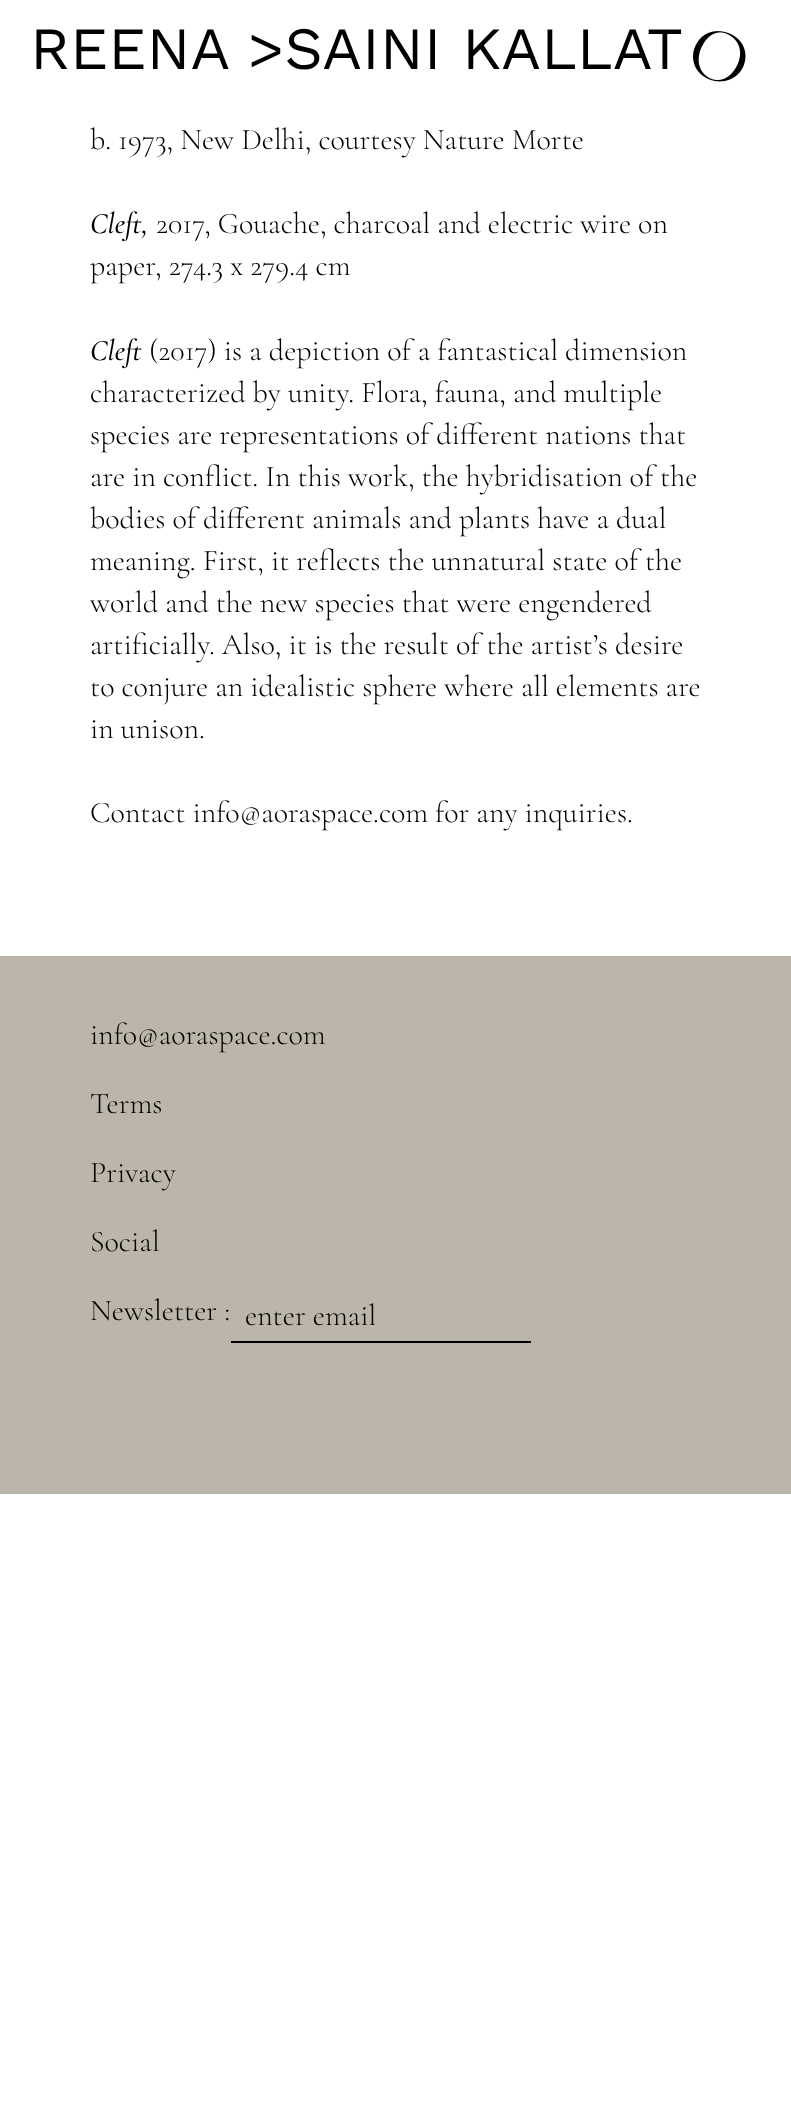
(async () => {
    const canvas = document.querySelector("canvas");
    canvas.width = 791;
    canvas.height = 2122;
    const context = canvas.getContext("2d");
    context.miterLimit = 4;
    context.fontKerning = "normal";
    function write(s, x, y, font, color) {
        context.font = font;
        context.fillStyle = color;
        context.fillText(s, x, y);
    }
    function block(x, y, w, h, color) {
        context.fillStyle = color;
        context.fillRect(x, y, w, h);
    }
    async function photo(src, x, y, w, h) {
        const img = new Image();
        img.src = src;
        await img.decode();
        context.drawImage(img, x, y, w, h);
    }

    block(0, 0, 791, 2122, "rgb(255, 255, 255)");
    write("REENA >SAINI KALLAT", 30, 69, "60px Work Sans", "rgb(0, 0, 0)");
    await photo("media/1.png", 693, 31, 53, 51);
    write("b. 1973, New Delhi, courtesy Nature Morte", 90, 149, "300 30px Cormorant Garamond", "rgb(0, 0, 0)");
    write("Cleft,", 90, 233, "italic 500 30px Cormorant Garamond", "rgb(0, 0, 0)");
    write("2017, Gouache, charcoal and electric wire on", 156, 233, "300 30px Cormorant Garamond", "rgb(0, 0, 0)");
    write("paper, 274.3 x 279.4 cm", 90, 275, "300 30px Cormorant Garamond", "rgb(0, 0, 0)");
    write("Cleft", 90, 360, "italic 500 30px Cormorant Garamond", "rgb(0, 0, 0)");
    write("(2017) is a depiction of a fantastical dimension", 149, 360, "300 30px Cormorant Garamond", "rgb(0, 0, 0)");
    write("characterized by unity. Flora, fauna, and multiple", 90, 402, "300 30px Cormorant Garamond", "rgb(0, 0, 0)");
    write("species are representations of different nations that", 90, 444, "300 30px Cormorant Garamond", "rgb(0, 0, 0)");
    write("are in conflict. In this work, the hybridisation of the", 90, 486, "300 30px Cormorant Garamond", "rgb(0, 0, 0)");
    write("bodies of different animals and plants have a dual", 90, 528, "300 30px Cormorant Garamond", "rgb(0, 0, 0)");
    write("meaning. First, it reflects the unnatural state of the", 90, 570, "300 30px Cormorant Garamond", "rgb(0, 0, 0)");
    write("world and the new species that were engendered", 90, 612, "300 30px Cormorant Garamond", "rgb(0, 0, 0)");
    write("artificially. Also, it is the result of the artist’s desire", 90, 654, "300 30px Cormorant Garamond", "rgb(0, 0, 0)");
    write("to conjure an idealistic sphere where all elements are", 90, 696, "300 30px Cormorant Garamond", "rgb(0, 0, 0)");
    write("in unison.", 90, 738, "300 30px Cormorant Garamond", "rgb(0, 0, 0)");
    write("Contact info@aoraspace.com for any inquiries.", 90, 822, "300 30px Cormorant Garamond", "rgb(0, 0, 0)");
    block(0, 956, 791, 538, "rgb(187, 182, 169)");
    write("info@aoraspace.com", 90, 1044, "300 30px Cormorant Garamond", "rgb(0, 0, 0)");
    write("Terms", 90, 1113, "300 30px Cormorant Garamond", "rgb(0, 0, 0)");
    write("Privacy", 90, 1182, "300 30px Cormorant Garamond", "rgb(0, 0, 0)");
    write("Social", 90, 1251, "300 30px Cormorant Garamond", "rgb(0, 0, 0)");
    write("Newsletter :", 90, 1320, "300 30px Cormorant Garamond", "rgb(0, 0, 0)");
    block(231, 1341, 300, 2, "rgb(0, 0, 0)");
    write("enter email", 245, 1325, "300 30px Cormorant Garamond", "rgb(0, 0, 0)");
})();
